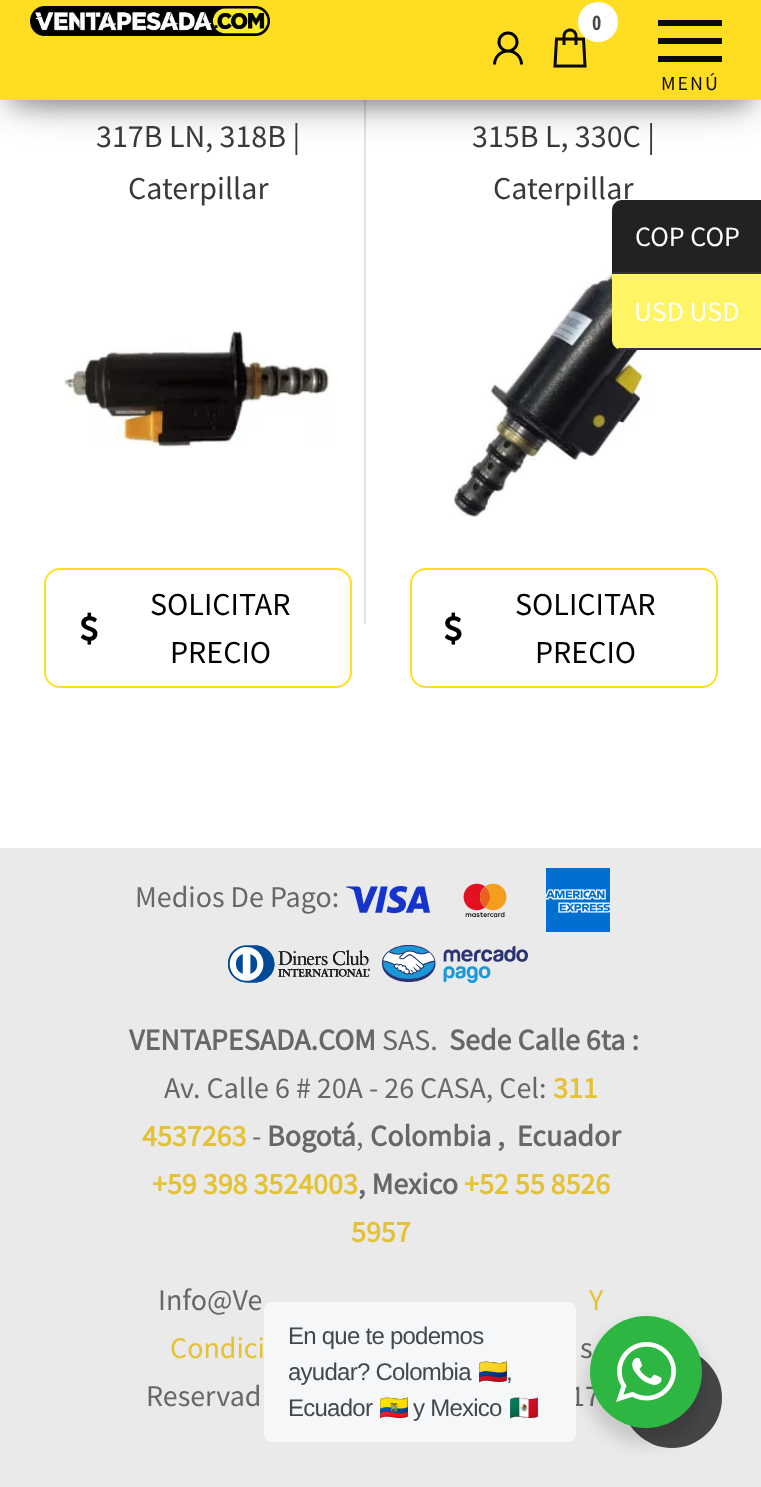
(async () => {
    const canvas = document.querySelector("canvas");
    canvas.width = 761;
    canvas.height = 1487;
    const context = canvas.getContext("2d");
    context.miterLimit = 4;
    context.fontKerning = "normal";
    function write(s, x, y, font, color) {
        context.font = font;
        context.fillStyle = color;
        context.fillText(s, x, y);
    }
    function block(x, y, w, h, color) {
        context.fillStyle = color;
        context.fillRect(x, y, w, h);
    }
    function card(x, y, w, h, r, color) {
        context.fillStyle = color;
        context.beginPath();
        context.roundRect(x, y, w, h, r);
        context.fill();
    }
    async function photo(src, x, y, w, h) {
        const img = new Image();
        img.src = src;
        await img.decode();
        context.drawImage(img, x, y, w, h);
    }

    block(0, 0, 761, 1487, "rgb(255, 255, 255)");
    block(364, 100, 2, 524, "rgb(226, 226, 226)");
    context.fillStyle = "rgba(0, 0, 0, 0.2)";
    context.filter = "blur(10px)";
    context.beginPath();
    context.rect(10, 26, 742, 80);
    context.fill();
    context.filter = "none";
    context.fillStyle = "rgba(0, 0, 0, 0.12)";
    context.filter = "blur(20px)";
    context.beginPath();
    context.rect(0, 6, 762, 100);
    context.fill();
    context.filter = "none";
    context.fillStyle = "rgba(0, 0, 0, 0.42)";
    context.filter = "blur(20px)";
    context.beginPath();
    context.rect(24, 44, 714, 52);
    context.fill();
    context.filter = "none";
    block(0, 0, 761, 100, "rgb(255, 221, 34)");
    await photo("media/1.png", 30, 6, 240, 30);
    await photo("media/2.png", 493, 31, 30, 34);
    await photo("media/3.png", 553, 28, 34, 40);
    context.fillStyle = "rgb(255, 255, 255)";
    context.beginPath();
    context.arc(598, 22, 20, 0, Math.PI * 2);
    context.fill();
    context.letterSpacing = "2px";
    write("0", 592, 30, "bold 20px Open Sans Condensed", "rgb(72, 72, 72)");
    block(658, 20, 64, 6, "rgb(10, 10, 10)");
    block(658, 38, 64, 6, "rgb(10, 10, 10)");
    block(658, 56, 64, 6, "rgb(10, 10, 10)");
    write("MENÚ", 661, 90, "20px Source Sans Pro", "rgb(10, 10, 10)");
    context.letterSpacing = "0px";
    write("317B LN, 318B |", 96, 147, "32px Source Sans Pro", "rgb(57, 57, 58)");
    write("Caterpillar", 128, 199, "32px Source Sans Pro", "rgb(57, 57, 58)");
    await photo("media/4.png", 64, 330, 268, 118);
    context.beginPath();
    context.roundRect(45, 569, 306, 118, 15);
    context.strokeStyle = "rgb(255, 221, 34)";
    context.lineWidth = 2;
    context.stroke();
    await photo("media/5.png", 80, 612, 18, 33);
    write("SOLICITAR", 150, 615, "32px Source Sans Pro", "rgb(0, 0, 0)");
    write("PRECIO", 170, 663, "32px Source Sans Pro", "rgb(0, 0, 0)");
    write("315B L, 330C |", 472, 147, "32px Source Sans Pro", "rgb(57, 57, 58)");
    write("Caterpillar", 493, 199, "32px Source Sans Pro", "rgb(57, 57, 58)");
    await photo("media/6.png", 451, 267, 205, 250);
    context.beginPath();
    context.roundRect(411, 569, 306, 118, 15);
    context.stroke();
    await photo("media/5.png", 444, 612, 18, 33);
    write("SOLICITAR", 515, 615, "32px Source Sans Pro", "rgb(0, 0, 0)");
    write("PRECIO", 535, 663, "32px Source Sans Pro", "rgb(0, 0, 0)");
    block(0, 848, 761, 639, "rgb(234, 234, 234)");
    write("Medios De Pago:", 135, 907, "30px Source Sans Pro", "rgb(103, 103, 103)");
    await photo("media/7.png", 346, 886, 84, 28);
    await photo("media/8.png", 463, 883, 44, 34);
    await photo("media/9.png", 546, 868, 64, 64);
    await photo("media/10.png", 228, 945, 142, 38);
    await photo("media/11.png", 382, 945, 146, 38);
    write("VENTAPESADA.COM", 129, 1050, "bold 30px Source Sans Pro", "rgb(103, 103, 103)");
    write("SAS.", 382, 1050, "30px Source Sans Pro", "rgb(103, 103, 103)");
    write("Sede Calle 6ta :", 449, 1050, "bold 30px Source Sans Pro", "rgb(103, 103, 103)");
    write("Av. Calle 6 # 20A - 26 CASA, Cel:", 164, 1098, "30px Source Sans Pro", "rgb(103, 103, 103)");
    write("311", 553, 1098, "bold 30px Source Sans Pro", "rgb(229, 194, 52)");
    write("4537263", 142, 1146, "bold 30px Source Sans Pro", "rgb(229, 194, 52)");
    write("-", 252, 1146, "30px Source Sans Pro", "rgb(103, 103, 103)");
    write("Bogotá", 267, 1146, "bold 30px Source Sans Pro", "rgb(103, 103, 103)");
    write("Colombia ,  Ecuador", 370, 1146, "bold 30px Source Sans Pro", "rgb(103, 103, 103)");
    write(",", 356, 1146, "30px Source Sans Pro", "rgb(103, 103, 103)");
    write("+59 398 3524003", 152, 1194, "bold 30px Source Sans Pro", "rgb(229, 194, 52)");
    write(", Mexico", 358, 1194, "bold 30px Source Sans Pro", "rgb(103, 103, 103)");
    write("+52 55 8526", 464, 1194, "bold 30px Source Sans Pro", "rgb(229, 194, 52)");
    write("5957", 351, 1242, "bold 30px Source Sans Pro", "rgb(229, 194, 52)");
    write("Info@Ve", 158, 1310, "30px Source Sans Pro", "rgb(103, 103, 103)");
    write("Y", 589, 1310, "30px Source Sans Pro", "rgb(229, 194, 52)");
    write("Condici", 170, 1358, "30px Source Sans Pro", "rgb(229, 194, 52)");
    write("s", 580, 1358, "30px Source Sans Pro", "rgb(103, 103, 103)");
    write("Reservad", 146, 1406, "30px Source Sans Pro", "rgb(103, 103, 103)");
    write("17", 570, 1406, "30px Source Sans Pro", "rgb(103, 103, 103)");
    context.fillStyle = "rgb(34, 34, 34)";
    context.beginPath();
    context.moveTo(622, 200);
    context.lineTo(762, 200);
    context.lineTo(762, 274);
    context.lineTo(612, 274);
    context.lineTo(612, 210);
    context.bezierCurveTo(612, 204.5, 616.5, 200, 622, 200);
    context.closePath();
    context.fill();
    block(612, 272, 149, 2, "rgb(51, 51, 51)");
    write("COP COP", 635, 246, "28px Source Sans Pro", "rgb(255, 255, 255)");
    context.fillStyle = "rgb(255, 244, 99)";
    context.beginPath();
    context.moveTo(612, 274);
    context.lineTo(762, 274);
    context.lineTo(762, 350);
    context.lineTo(622, 350);
    context.bezierCurveTo(616.5, 350, 612, 345.5, 612, 340);
    context.closePath();
    context.fill();
    block(618, 348, 143, 2, "rgb(51, 51, 51)");
    write("USD USD", 634, 321, "28px Source Sans Pro", "rgb(255, 255, 255)");
    context.fillStyle = "rgb(70, 70, 70)";
    context.beginPath();
    context.arc(672, 1398, 50, 0, Math.PI * 2);
    context.fill();
    context.fillStyle = "rgba(0, 0, 0, 0.14)";
    context.filter = "blur(8px)";
    context.beginPath();
    context.roundRect(586, 1324, 120, 120, 60);
    context.fill();
    context.filter = "none";
    card(264, 1302, 312, 140, 8, "rgb(245, 247, 249)");
    context.letterSpacing = "-0.75px";
    write("En que te podemos", 288, 1344, "24px Liberation Sans", "rgb(67, 71, 78)");
    write("ayudar? Colombia", 288, 1380, "24px Liberation Sans", "rgb(67, 71, 78)");
    write("🇨🇴", 478, 1380, "24px Noto Color Emoji", "rgb(67, 71, 78)");
    write(",", 506, 1380, "24px Liberation Sans", "rgb(67, 71, 78)");
    write("Ecuador", 288, 1416, "24px Liberation Sans", "rgb(67, 71, 78)");
    write("🇪🇨", 379, 1416, "24px Noto Color Emoji", "rgb(67, 71, 78)");
    write("y Mexico", 413, 1416, "24px Liberation Sans", "rgb(67, 71, 78)");
    write("🇲🇽", 509, 1416, "24px Noto Color Emoji", "rgb(67, 71, 78)");
    context.fillStyle = "rgb(45, 183, 66)";
    context.beginPath();
    context.arc(646, 1372, 56, 0, Math.PI * 2);
    context.fill();
    await photo("media/12.png", 616, 1342, 60, 60);
})();
